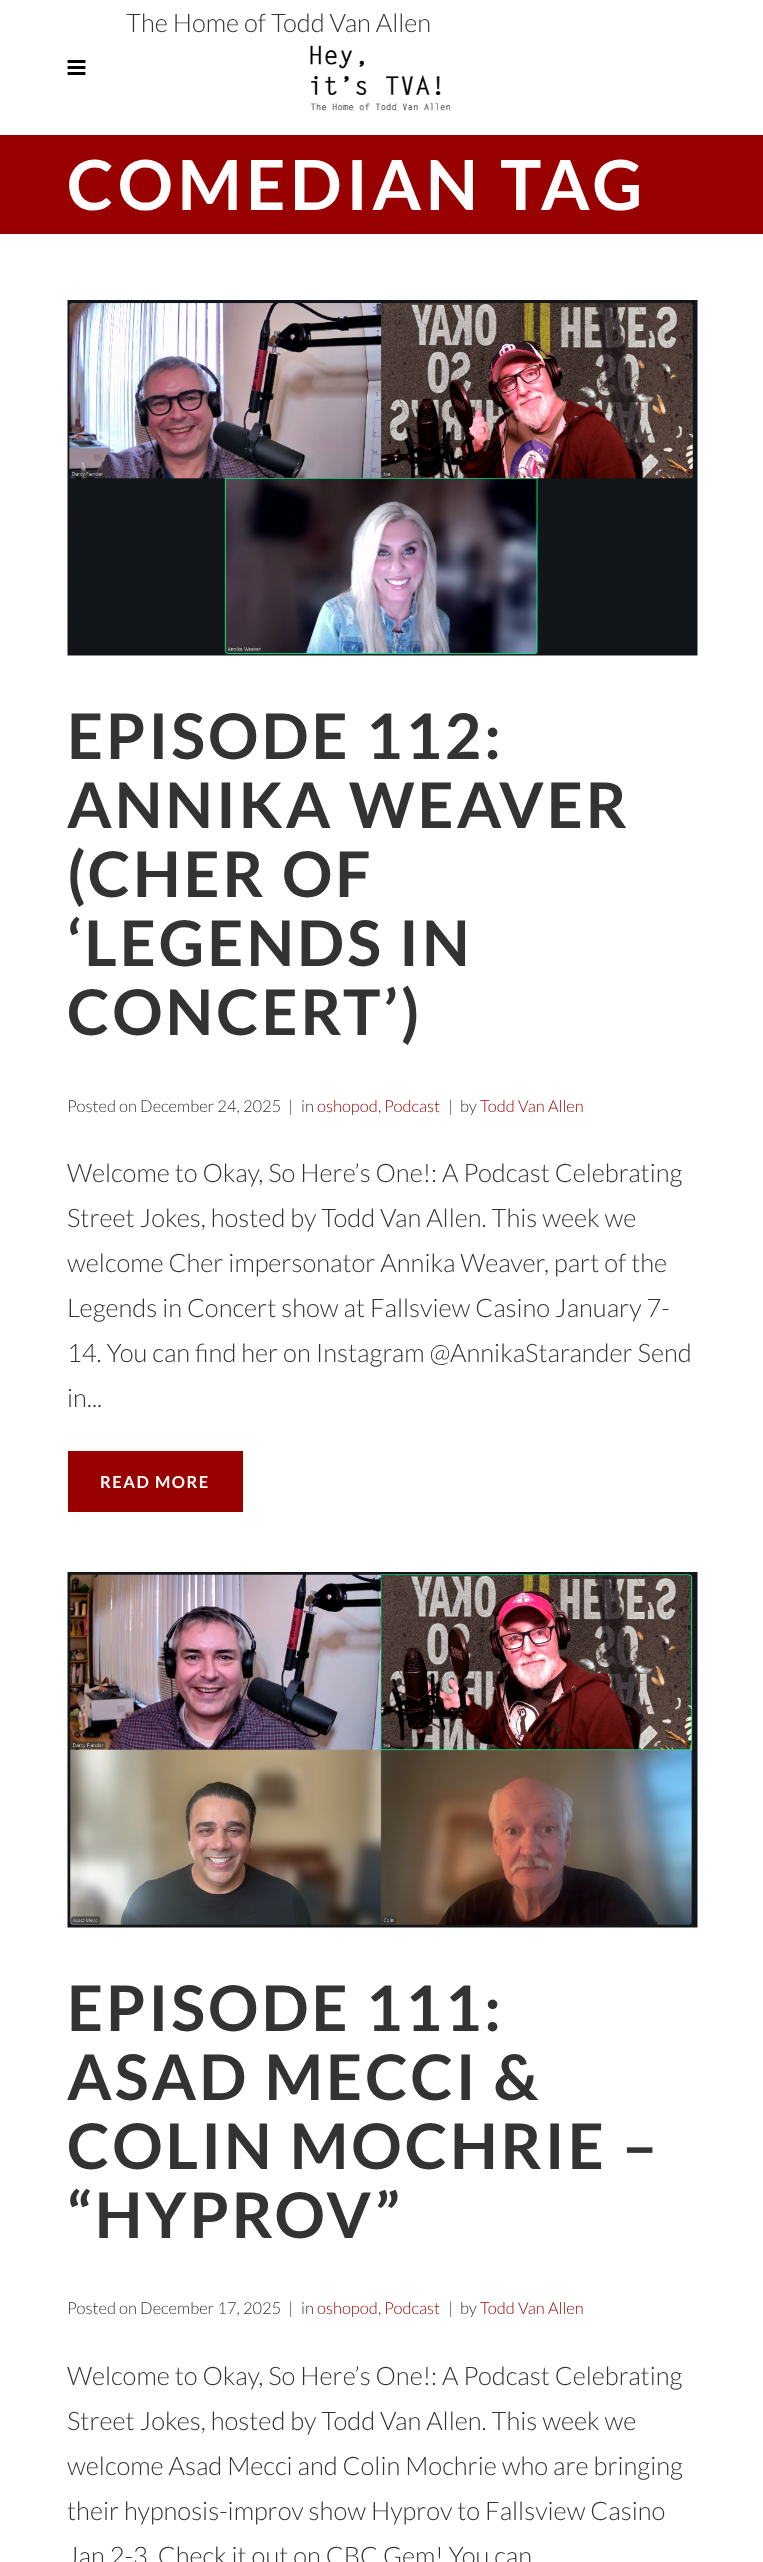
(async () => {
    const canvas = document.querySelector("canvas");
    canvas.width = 763;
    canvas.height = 2562;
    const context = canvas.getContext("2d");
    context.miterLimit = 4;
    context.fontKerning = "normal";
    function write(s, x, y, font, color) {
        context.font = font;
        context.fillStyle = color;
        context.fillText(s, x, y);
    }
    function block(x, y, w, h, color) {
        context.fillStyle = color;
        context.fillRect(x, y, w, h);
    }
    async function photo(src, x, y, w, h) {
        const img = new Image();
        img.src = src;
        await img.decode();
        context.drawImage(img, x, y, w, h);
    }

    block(0, 0, 763, 2562, "rgb(255, 255, 255)");
    write("The Home of Todd Van Allen", 126, 32, "300 25.5px Lato", "rgb(51, 51, 51)");
    await photo("media/1.png", 67, 60, 19, 15);
    await photo("media/2.png", 310, 45, 141, 66);
    block(0, 135, 763, 99, "rgb(153, 0, 0)");
    context.letterSpacing = "4.5px";
    write("COMEDIAN TAG", 67, 210, "bold 69px Lato", "rgb(255, 255, 255)");
    await photo("media/3.png", 67, 300, 631, 356);
    context.letterSpacing = "3px";
    write("EPISODE 112:", 67, 759, "bold 63px Lato", "rgb(51, 51, 51)");
    write("ANNIKA WEAVER", 67, 828, "bold 63px Lato", "rgb(51, 51, 51)");
    write("(CHER OF", 67, 897, "bold 63px Lato", "rgb(51, 51, 51)");
    write("‘LEGENDS IN", 67, 966, "bold 63px Lato", "rgb(51, 51, 51)");
    write("CONCERT’)", 67, 1035, "bold 63px Lato", "rgb(51, 51, 51)");
    context.letterSpacing = "0px";
    write("Posted on December 24, 2025", 67, 1112, "300 16.5px Lato", "rgb(51, 51, 51)");
    write("|", 288, 1112, "300 16.5px Lato", "rgb(51, 51, 51)");
    write("in", 301, 1112, "300 16.5px Lato", "rgb(51, 51, 51)");
    write("oshopod", 317, 1112, "300 16.5px Lato", "rgb(153, 0, 0)");
    write(",", 378, 1112, "300 16.5px Lato", "rgb(51, 51, 51)");
    write("Podcast", 384, 1112, "300 16.5px Lato", "rgb(153, 0, 0)");
    write("|", 448, 1112, "300 16.5px Lato", "rgb(51, 51, 51)");
    write("by", 460, 1112, "300 16.5px Lato", "rgb(51, 51, 51)");
    write("Todd Van Allen", 480, 1112, "300 16.5px Lato", "rgb(153, 0, 0)");
    write("Welcome to Okay, So Here’s One!: A Podcast Celebrating", 67, 1182, "300 25.5px Lato", "rgb(51, 51, 51)");
    write("Street Jokes, hosted by Todd Van Allen. This week we", 67, 1227, "300 25.5px Lato", "rgb(51, 51, 51)");
    write("welcome Cher impersonator Annika Weaver, part of the", 67, 1272, "300 25.5px Lato", "rgb(51, 51, 51)");
    write("Legends in Concert show at Fallsview Casino January 7-", 67, 1317, "300 25.5px Lato", "rgb(51, 51, 51)");
    write("14. You can find her on Instagram @AnnikaStarander Send", 67, 1362, "300 25.5px Lato", "rgb(51, 51, 51)");
    write("in...", 67, 1407, "300 25.5px Lato", "rgb(51, 51, 51)");
    block(68, 1451, 175, 61, "rgb(153, 0, 0)");
    context.letterSpacing = "1.5px";
    write("READ MORE", 100, 1488, "bold 16.5px Lato", "rgb(255, 255, 255)");
    await photo("media/4.png", 67, 1572, 631, 356);
    context.letterSpacing = "3px";
    write("EPISODE 111:", 67, 2031, "bold 63px Lato", "rgb(51, 51, 51)");
    write("ASAD MECCI &", 67, 2100, "bold 63px Lato", "rgb(51, 51, 51)");
    write("COLIN MOCHRIE –", 67, 2169, "bold 63px Lato", "rgb(51, 51, 51)");
    write("“HYPROV”", 67, 2238, "bold 63px Lato", "rgb(51, 51, 51)");
    context.letterSpacing = "0px";
    write("Posted on December 17, 2025", 67, 2314, "300 16.5px Lato", "rgb(51, 51, 51)");
    write("|", 288, 2314, "300 16.5px Lato", "rgb(51, 51, 51)");
    write("in", 301, 2314, "300 16.5px Lato", "rgb(51, 51, 51)");
    write("oshopod", 317, 2314, "300 16.5px Lato", "rgb(153, 0, 0)");
    write(",", 378, 2314, "300 16.5px Lato", "rgb(51, 51, 51)");
    write("Podcast", 384, 2314, "300 16.5px Lato", "rgb(153, 0, 0)");
    write("|", 448, 2314, "300 16.5px Lato", "rgb(51, 51, 51)");
    write("by", 460, 2314, "300 16.5px Lato", "rgb(51, 51, 51)");
    write("Todd Van Allen", 480, 2314, "300 16.5px Lato", "rgb(153, 0, 0)");
    write("Welcome to Okay, So Here’s One!: A Podcast Celebrating", 67, 2385, "300 25.5px Lato", "rgb(51, 51, 51)");
    write("Street Jokes, hosted by Todd Van Allen. This week we", 67, 2430, "300 25.5px Lato", "rgb(51, 51, 51)");
    write("welcome Asad Mecci and Colin Mochrie who are bringing", 67, 2475, "300 25.5px Lato", "rgb(51, 51, 51)");
    write("their hypnosis-improv show Hyprov to Fallsview Casino", 67, 2520, "300 25.5px Lato", "rgb(51, 51, 51)");
    write("Jan 2-3. Check it out on CBC Gem! You can", 67, 2565, "300 25.5px Lato", "rgb(51, 51, 51)");
})();
